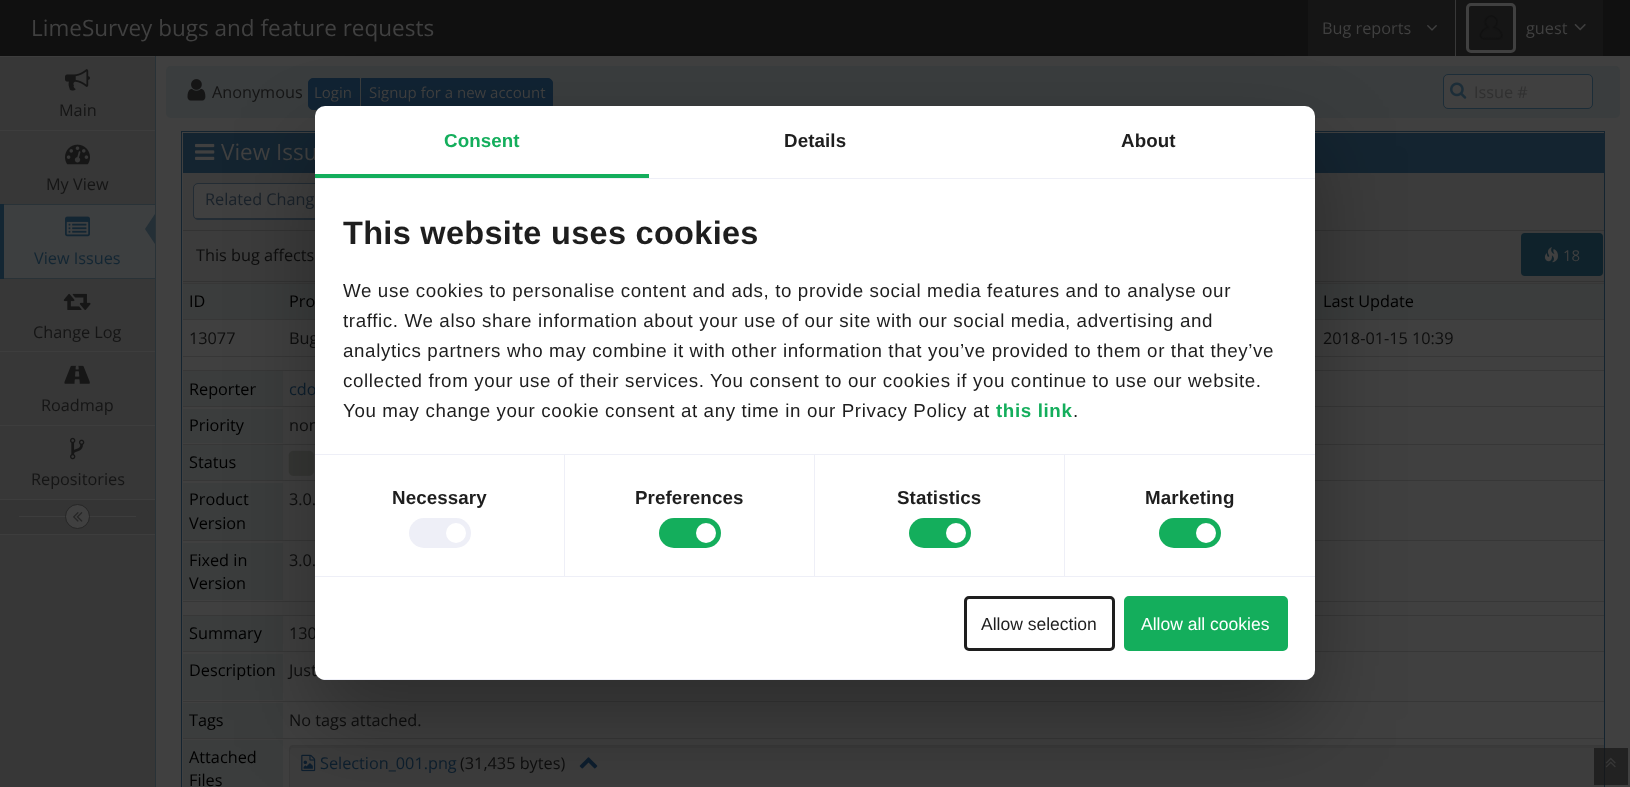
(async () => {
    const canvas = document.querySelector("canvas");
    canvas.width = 1630;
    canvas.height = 787;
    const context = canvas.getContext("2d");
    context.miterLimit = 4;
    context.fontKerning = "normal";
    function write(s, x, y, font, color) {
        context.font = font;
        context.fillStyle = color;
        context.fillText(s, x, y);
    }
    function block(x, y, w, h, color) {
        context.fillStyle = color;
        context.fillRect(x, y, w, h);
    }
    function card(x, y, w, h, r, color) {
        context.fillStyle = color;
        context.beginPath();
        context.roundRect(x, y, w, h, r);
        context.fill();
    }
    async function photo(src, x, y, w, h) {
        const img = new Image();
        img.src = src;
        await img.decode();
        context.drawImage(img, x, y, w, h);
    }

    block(0, 0, 1630, 787, "rgb(64, 64, 64)");
    block(0, 0, 1630, 56, "rgb(16, 16, 16)");
    write("LimeSurvey bugs and feature requests", 31, 36, "22.5px Open Sans", "rgb(64, 64, 64)");
    block(1308, 0, 147, 56, "rgb(21, 21, 21)");
    write("Bug reports", 1322, 34, "16.25px Open Sans", "rgb(64, 64, 64)");
    await photo("media/1.png", 1427, 25, 10, 6);
    block(1455, 0, 1, 56, "rgb(56, 56, 56)");
    block(1456, 0, 147, 56, "rgb(21, 21, 21)");
    context.beginPath();
    context.roundRect(1467.5, 4.5, 47, 47, 3.5);
    context.strokeStyle = "rgb(64, 64, 64)";
    context.lineWidth = 3;
    context.stroke();
    await photo("media/2.png", 1479, 15, 24, 25);
    write("guest", 1526, 34, "16.25px Open Sans", "rgb(64, 64, 64)");
    await photo("media/3.png", 1574, 24, 12, 7);
    block(0, 57, 155, 730, "rgb(55, 55, 55)");
    block(155, 56, 1, 731, "rgb(41, 50, 55)");
    block(0, 56, 155, 1, "rgb(61, 61, 61)");
    await photo("media/4.png", 65, 69, 25, 22);
    write("Main", 59, 116, "16.25px Open Sans", "rgb(21, 21, 21)");
    block(0, 130, 155, 1, "rgb(61, 61, 61)");
    await photo("media/5.png", 65, 144, 25, 21);
    write("My View", 46, 190, "16.25px Open Sans", "rgb(21, 21, 21)");
    block(0, 204, 155, 1, "rgb(41, 50, 55)");
    block(0, 278, 155, 1, "rgb(41, 50, 55)");
    block(0, 204, 4, 75, "rgb(19, 38, 51)");
    block(4, 205, 151, 73, "rgb(61, 63, 64)");
    await photo("media/6.png", 65, 216, 25, 21);
    context.fillStyle = "rgb(36, 47, 54)";
    context.beginPath();
    context.moveTo(155, 214);
    context.lineTo(155, 244);
    context.lineTo(145, 229);
    context.closePath();
    context.fill();
    write("View Issues", 34, 264, "16.25px Open Sans", "rgb(19, 38, 51)");
    await photo("media/7.png", 63, 293, 28, 17);
    write("Change Log", 33, 338, "16.25px Open Sans", "rgb(21, 21, 21)");
    block(0, 351, 155, 1, "rgb(61, 61, 61)");
    await photo("media/8.png", 64, 365, 26, 19);
    write("Roadmap", 41, 411, "16.25px Open Sans", "rgb(21, 21, 21)");
    block(0, 425, 155, 1, "rgb(61, 61, 61)");
    block(0, 499, 155, 1, "rgb(61, 61, 61)");
    await photo("media/9.png", 70, 437, 15, 23);
    write("Repositories", 31, 485, "16.25px Open Sans", "rgb(21, 21, 21)");
    block(0, 500, 155, 34, "rgb(52, 52, 52)");
    block(0, 534, 155, 1, "rgb(61, 61, 61)");
    block(19, 516, 117, 1, "rgb(61, 61, 61)");
    context.fillStyle = "rgb(64, 64, 64)";
    context.beginPath();
    context.arc(77.5, 516.5, 12, 0, Math.PI * 2);
    context.fill();
    context.strokeStyle = "rgb(38, 38, 38)";
    context.lineWidth = 1;
    context.stroke();
    await photo("media/10.png", 73, 512, 10, 10);
    card(166, 66, 1454, 52, 5, "rgb(58, 61, 62)");
    await photo("media/11.png", 187, 79, 19, 22);
    write("Anonymous", 212, 98, "16.25px Open Sans", "rgb(21, 21, 21)");
    context.fillStyle = "rgb(17, 35, 51)";
    context.beginPath();
    context.roundRect(308.5, 78.5, 51, 31, [4.5, 0, 0, 4.5]);
    context.fill();
    context.strokeStyle = "rgb(17, 35, 51)";
    context.stroke();
    write("Login", 314, 98, "15px Open Sans", "rgb(64, 64, 64)");
    context.fillStyle = "rgb(17, 35, 51)";
    context.beginPath();
    context.roundRect(361.5, 78.5, 191, 31, [0, 4.5, 4.5, 0]);
    context.fill();
    context.stroke();
    write("Signup for a new account", 369, 98, "15px Open Sans", "rgb(64, 64, 64)");
    context.beginPath();
    context.roundRect(1443.5, 74.5, 149, 34, 4.5);
    context.fill();
    context.strokeStyle = "rgb(28, 45, 56)";
    context.stroke();
    await photo("media/12.png", 1450, 82, 17, 17);
    write("Issue #", 1474, 98, "16.25px Open Sans", "rgb(48, 48, 48)");
    context.strokeStyle = "rgb(20, 36, 48)";
    context.strokeRect(181.5, 131.5, 1423, 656);
    block(183, 133, 1421, 40, "rgb(20, 36, 48)");
    await photo("media/13.png", 195, 143, 20, 17);
    write("View Issu", 221, 160, "22.5px Open Sans", "rgb(64, 64, 64)");
    block(183, 173, 1421, 57, "rgb(60, 60, 60)");
    block(183, 230, 1421, 1, "rgb(51, 51, 51)");
    context.fillStyle = "rgb(64, 64, 64)";
    context.beginPath();
    context.moveTo(198, 184);
    context.lineTo(361, 184);
    context.bezierCurveTo(363, 184, 365, 185, 365, 188);
    context.lineTo(365, 215);
    context.bezierCurveTo(365, 216, 363, 218, 361, 218);
    context.lineTo(198, 218);
    context.bezierCurveTo(195, 218, 194, 216, 194, 215);
    context.lineTo(194, 188);
    context.bezierCurveTo(194, 185, 195, 184, 198, 184);
    context.closePath();
    context.fill();
    context.beginPath();
    context.roundRect(193.5, 183.5, 172, 36, 4.5);
    context.strokeStyle = "rgb(35, 44, 52)";
    context.stroke();
    block(195, 218, 120, 1, "rgb(35, 44, 52)");
    write("Related Chang", 205, 205, "16.25px Open Sans", "rgb(26, 34, 42)");
    block(183, 231, 1421, 52, "rgb(60, 60, 60)");
    block(183, 281, 1421, 1, "rgb(51, 51, 51)");
    write("This bug affects", 196, 261, "16.25px Open Sans", "rgb(14, 14, 14)");
    card(1521, 233, 82, 43, 4, "rgb(15, 34, 43)");
    await photo("media/14.png", 1544, 247, 14, 16);
    write("18", 1563, 261, "15px Open Sans", "rgb(64, 64, 64)");
    block(1315, 284, 289, 35, "rgb(59, 61, 61)");
    block(183, 284, 132, 35, "rgb(59, 61, 61)");
    write("ID", 189, 307, "16.25px Open Sans", "rgb(0, 0, 0)");
    block(183, 283, 132, 1, "rgb(55, 55, 55)");
    write("Pro", 289, 307, "16.25px Open Sans", "rgb(0, 0, 0)");
    block(1315, 283, 289, 1, "rgb(55, 55, 55)");
    write("Last Update", 1323, 307, "16.25px Open Sans", "rgb(0, 0, 0)");
    write("13077", 189, 344, "16.25px Open Sans", "rgb(14, 14, 14)");
    block(183, 319, 132, 1, "rgb(55, 55, 55)");
    write("Bug", 289, 344, "16.25px Open Sans", "rgb(14, 14, 14)");
    block(1315, 319, 289, 1, "rgb(55, 55, 55)");
    write("2018-01-15 10:39", 1323, 344, "16.25px Open Sans", "rgb(14, 14, 14)");
    block(183, 356, 1421, 1, "rgb(55, 55, 55)");
    block(1315, 370, 289, 1, "rgb(55, 55, 55)");
    block(183, 371, 100, 35, "rgb(59, 61, 61)");
    write("Reporter", 189, 395, "16.25px Open Sans", "rgb(0, 0, 0)");
    block(183, 370, 132, 1, "rgb(55, 55, 55)");
    write("cdo", 289, 395, "16.25px Open Sans", "rgb(13, 31, 46)");
    block(1315, 406, 289, 1, "rgb(55, 55, 55)");
    block(183, 409, 100, 34, "rgb(59, 61, 61)");
    write("Priority", 189, 431, "16.25px Open Sans", "rgb(0, 0, 0)");
    block(183, 406, 132, 1, "rgb(55, 55, 55)");
    write("non", 289, 431, "16.25px Open Sans", "rgb(14, 14, 14)");
    block(183, 444, 132, 1, "rgb(55, 55, 55)");
    await photo("media/15.png", 288, 450, 26, 26);
    block(1315, 444, 289, 1, "rgb(55, 55, 55)");
    block(183, 445, 100, 35, "rgb(59, 61, 61)");
    write("Status", 189, 468, "16.25px Open Sans", "rgb(0, 0, 0)");
    block(1315, 480, 289, 1, "rgb(55, 55, 55)");
    block(183, 483, 100, 57, "rgb(59, 61, 61)");
    write("Product", 189, 505, "16.25px Open Sans", "rgb(0, 0, 0)");
    write("Version", 189, 529, "16.25px Open Sans", "rgb(0, 0, 0)");
    block(183, 480, 132, 1, "rgb(55, 55, 55)");
    write("3.0.", 289, 505, "16.25px Open Sans", "rgb(14, 14, 14)");
    block(1315, 540, 289, 1, "rgb(55, 55, 55)");
    block(183, 543, 100, 57, "rgb(59, 61, 61)");
    write("Fixed in", 189, 566, "16.25px Open Sans", "rgb(0, 0, 0)");
    write("Version", 189, 589, "16.25px Open Sans", "rgb(0, 0, 0)");
    block(183, 540, 132, 1, "rgb(55, 55, 55)");
    write("3.0.", 289, 566, "16.25px Open Sans", "rgb(14, 14, 14)");
    block(183, 601, 1421, 1, "rgb(55, 55, 55)");
    block(183, 616, 100, 35, "rgb(59, 61, 61)");
    write("Summary", 189, 639, "16.25px Open Sans", "rgb(0, 0, 0)");
    block(183, 615, 1421, 1, "rgb(55, 55, 55)");
    write("130", 289, 639, "16.25px Open Sans", "rgb(14, 14, 14)");
    block(183, 654, 100, 46, "rgb(59, 61, 61)");
    write("Description", 189, 676, "16.25px Open Sans", "rgb(0, 0, 0)");
    block(183, 651, 1421, 1, "rgb(55, 55, 55)");
    write("Just", 289, 676, "16.25px Open Sans", "rgb(14, 14, 14)");
    block(183, 703, 100, 35, "rgb(59, 61, 61)");
    write("Tags", 189, 726, "16.25px Open Sans", "rgb(0, 0, 0)");
    block(183, 701, 1421, 1, "rgb(55, 55, 55)");
    write("No tags attached.", 289, 726, "16.25px Open Sans", "rgb(14, 14, 14)");
    block(183, 740, 100, 47, "rgb(59, 61, 61)");
    write("Attached", 189, 763, "16.25px Open Sans", "rgb(0, 0, 0)");
    write("Files", 189, 786, "16.25px Open Sans", "rgb(0, 0, 0)");
    block(183, 738, 1421, 1, "rgb(55, 55, 55)");
    context.fillStyle = "rgb(61, 61, 61)";
    context.beginPath();
    context.moveTo(293, 745);
    context.lineTo(1604, 745);
    context.lineTo(1604, 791);
    context.lineTo(293, 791);
    context.bezierCurveTo(291, 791, 289, 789, 289, 787);
    context.lineTo(289, 749);
    context.bezierCurveTo(289, 747, 291, 745, 293, 745);
    context.closePath();
    context.fill();
    context.save();
    context.beginPath();
    context.rect(183, 231, 1421, 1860);
    context.clip();
    context.fillStyle = "rgb(58, 58, 58)";
    context.beginPath();
    context.moveTo(292, 748);
    context.lineTo(1625, 748);
    context.bezierCurveTo(1626, 748, 1628, 749, 1628, 750);
    context.lineTo(1628, 748);
    context.bezierCurveTo(1628, 747, 1627, 746, 1626, 746);
    context.lineTo(292, 746);
    context.bezierCurveTo(291, 746, 290, 747, 290, 748);
    context.lineTo(290, 750);
    context.bezierCurveTo(290, 749, 291, 748, 292, 748);
    context.closePath();
    context.fill();
    context.beginPath();
    context.roundRect(289.5, 745.5, 1339, 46, 3.5);
    context.strokeStyle = "rgb(57, 57, 57)";
    context.stroke();
    context.restore();
    await photo("media/16.png", 301, 754, 15, 18);
    write("Selection_001.png", 320, 769, "16.25px Open Sans", "rgb(13, 31, 46)");
    write("(31,435 bytes)", 460, 769, "16.25px Open Sans", "rgb(14, 14, 14)");
    await photo("media/17.png", 579, 757, 19, 12);
    block(1594, 748, 34, 37, "rgba(21, 21, 21, 0.7)");
    await photo("media/18.png", 1605, 757, 11, 11);
    context.fillStyle = "rgba(0, 0, 0, 0.3)";
    context.filter = "blur(42.5px)";
    context.beginPath();
    context.roundRect(315, 146, 1000, 574, 10);
    context.fill();
    context.filter = "none";
    card(315, 106, 1000, 574, 10, "rgb(255, 255, 255)");
    block(315, 178, 1000, 1, "rgb(238, 239, 247)");
    block(315, 174, 334, 4, "rgb(20, 174, 92)");
    context.letterSpacing = "0.1px";
    write("Consent", 444, 147, "bold 18.75px Liberation Sans", "rgb(20, 174, 92)");
    write("Details", 784, 147, "bold 18.75px Liberation Sans", "rgb(30, 30, 30)");
    write("About", 1121, 147, "bold 18.75px Liberation Sans", "rgb(30, 30, 30)");
    block(315, 454, 1000, 1, "rgb(238, 239, 247)");
    context.letterSpacing = "0.3px";
    write("This website uses cookies", 343, 244, "bold 32.5px Liberation Sans", "rgb(30, 30, 30)");
    context.letterSpacing = "0.62px";
    write("We use cookies to personalise content and ads, to provide social media features and to analyse our", 343, 297, "18.75px Liberation Sans", "rgb(30, 30, 30)");
    write("traffic. We also share information about your use of our site with our social media, advertising and", 343, 327, "18.75px Liberation Sans", "rgb(30, 30, 30)");
    write("analytics partners who may combine it with other information that you’ve provided to them or that they’ve", 343, 357, "18.75px Liberation Sans", "rgb(30, 30, 30)");
    write("collected from your use of their services. You consent to our cookies if you continue to use our website.", 343, 387, "18.75px Liberation Sans", "rgb(30, 30, 30)");
    write("You may change your cookie consent at any time in our Privacy Policy at", 343, 417, "18.75px Liberation Sans", "rgb(30, 30, 30)");
    write("this link", 996, 417, "bold 18.75px Liberation Sans", "rgb(20, 174, 92)");
    write(".", 1073, 417, "18.75px Liberation Sans", "rgb(30, 30, 30)");
    block(315, 576, 1000, 1, "rgb(238, 239, 247)");
    block(564, 455, 1, 121, "rgb(238, 239, 247)");
    context.letterSpacing = "0.1px";
    write("Necessary", 392, 504, "bold 18.75px Liberation Sans", "rgb(30, 30, 30)");
    card(409, 518, 62, 30, 15, "rgb(238, 239, 247)");
    context.fillStyle = "rgb(255, 255, 255)";
    context.beginPath();
    context.arc(456, 533, 10, 0, Math.PI * 2);
    context.fill();
    block(814, 455, 1, 121, "rgb(238, 239, 247)");
    write("Preferences", 635, 504, "bold 18.75px Liberation Sans", "rgb(30, 30, 30)");
    card(659, 518, 62, 30, 15, "rgb(20, 174, 92)");
    context.fillStyle = "rgb(255, 255, 255)";
    context.beginPath();
    context.arc(706, 533, 10, 0, Math.PI * 2);
    context.fill();
    block(1064, 455, 1, 121, "rgb(238, 239, 247)");
    write("Statistics", 897, 504, "bold 18.75px Liberation Sans", "rgb(30, 30, 30)");
    card(909, 518, 62, 30, 15, "rgb(20, 174, 92)");
    context.fillStyle = "rgb(255, 255, 255)";
    context.beginPath();
    context.arc(956, 533, 10, 0, Math.PI * 2);
    context.fill();
    write("Marketing", 1145, 504, "bold 18.75px Liberation Sans", "rgb(30, 30, 30)");
    card(1159, 518, 62, 30, 15, "rgb(20, 174, 92)");
    context.fillStyle = "rgb(255, 255, 255)";
    context.beginPath();
    context.arc(1206, 533, 10, 0, Math.PI * 2);
    context.fill();
    context.save();
    context.beginPath();
    context.roundRect(315, 106, 1000, 574, 10);
    context.clip();
    block(315, 679, 1000, 1, "rgb(238, 239, 247)");
    context.restore();
    context.beginPath();
    context.roundRect(965.5, 597.5, 148, 52, 3.5);
    context.strokeStyle = "rgb(30, 30, 30)";
    context.lineWidth = 3;
    context.stroke();
    context.letterSpacing = "0px";
    write("Allow selection", 981, 630, "17.5px Liberation Sans", "rgb(30, 30, 30)");
    context.fillStyle = "rgb(20, 174, 92)";
    context.beginPath();
    context.roundRect(1125.5, 597.5, 161, 52, 3.5);
    context.fill();
    context.strokeStyle = "rgb(20, 174, 92)";
    context.stroke();
    write("Allow all cookies", 1141, 630, "17.5px Liberation Sans", "rgb(255, 255, 255)");
})();
